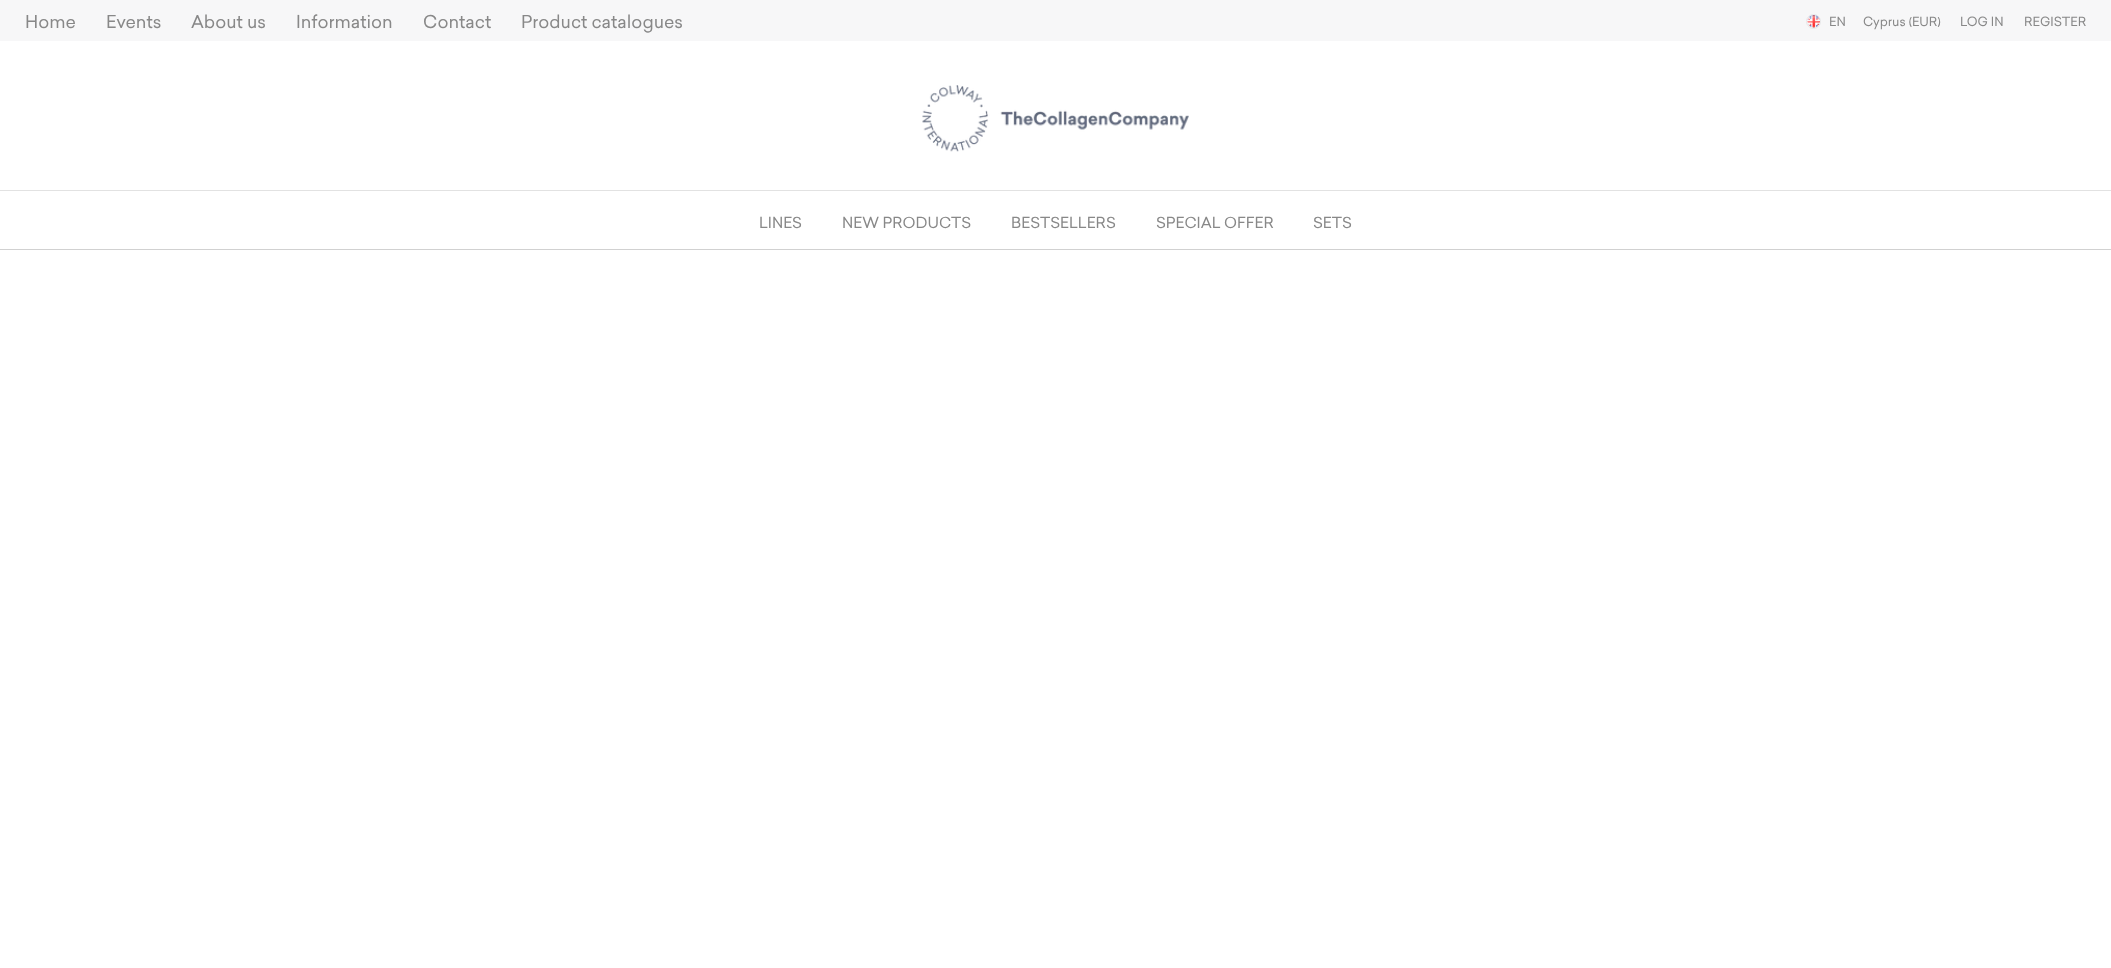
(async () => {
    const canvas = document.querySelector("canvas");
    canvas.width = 2111;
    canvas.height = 968;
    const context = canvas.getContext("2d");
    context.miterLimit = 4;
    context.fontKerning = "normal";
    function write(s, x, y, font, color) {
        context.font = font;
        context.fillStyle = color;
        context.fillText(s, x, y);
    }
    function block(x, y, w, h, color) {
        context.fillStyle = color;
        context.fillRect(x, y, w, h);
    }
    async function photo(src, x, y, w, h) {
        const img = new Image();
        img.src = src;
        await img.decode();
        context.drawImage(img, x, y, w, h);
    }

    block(0, 0, 2111, 968, "rgb(255, 255, 255)");
    block(0, 0, 2111, 41, "rgb(247, 247, 248)");
    write("Home", 25, 28, "17.5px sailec", "rgb(136, 136, 136)");
    write("Events", 106, 28, "17.5px sailec", "rgb(136, 136, 136)");
    write("About us", 191, 28, "17.5px sailec", "rgb(136, 136, 136)");
    write("Information", 296, 28, "17.5px sailec", "rgb(136, 136, 136)");
    write("Contact", 423, 28, "17.5px sailec", "rgb(136, 136, 136)");
    write("Product catalogues", 521, 28, "17.5px sailec", "rgb(136, 136, 136)");
    context.beginPath();
    context.arc(1813.5, 21.5, 7, 0, Math.PI * 2);
    context.strokeStyle = "rgb(232, 232, 232)";
    context.stroke();
    await photo("media/1.png", 1807, 15, 13, 13);
    write("EN", 1829, 26, "12.5px sailec", "rgb(136, 136, 136)");
    write("Cyprus (EUR)", 1863, 26, "12.5px sailec", "rgb(136, 136, 136)");
    write("LOG IN", 1960, 26, "12.5px sailec", "rgb(136, 136, 136)");
    write("REGISTER", 2024, 26, "12.5px sailec", "rgb(136, 136, 136)");
    await photo("media/2.png", 922, 85, 267, 67);
    block(0, 190, 2111, 1, "rgb(226, 226, 226)");
    block(0, 249, 2111, 1, "rgb(209, 209, 209)");
    write("LINES", 759, 228, "15px sailec", "rgb(136, 136, 136)");
    write("NEW PRODUCTS", 842, 228, "15px sailec", "rgb(136, 136, 136)");
    write("BESTSELLERS", 1011, 228, "15px sailec", "rgb(136, 136, 136)");
    write("SPECIAL OFFER", 1156, 228, "15px sailec", "rgb(136, 136, 136)");
    write("SETS", 1313, 228, "15px sailec", "rgb(136, 136, 136)");
})();
